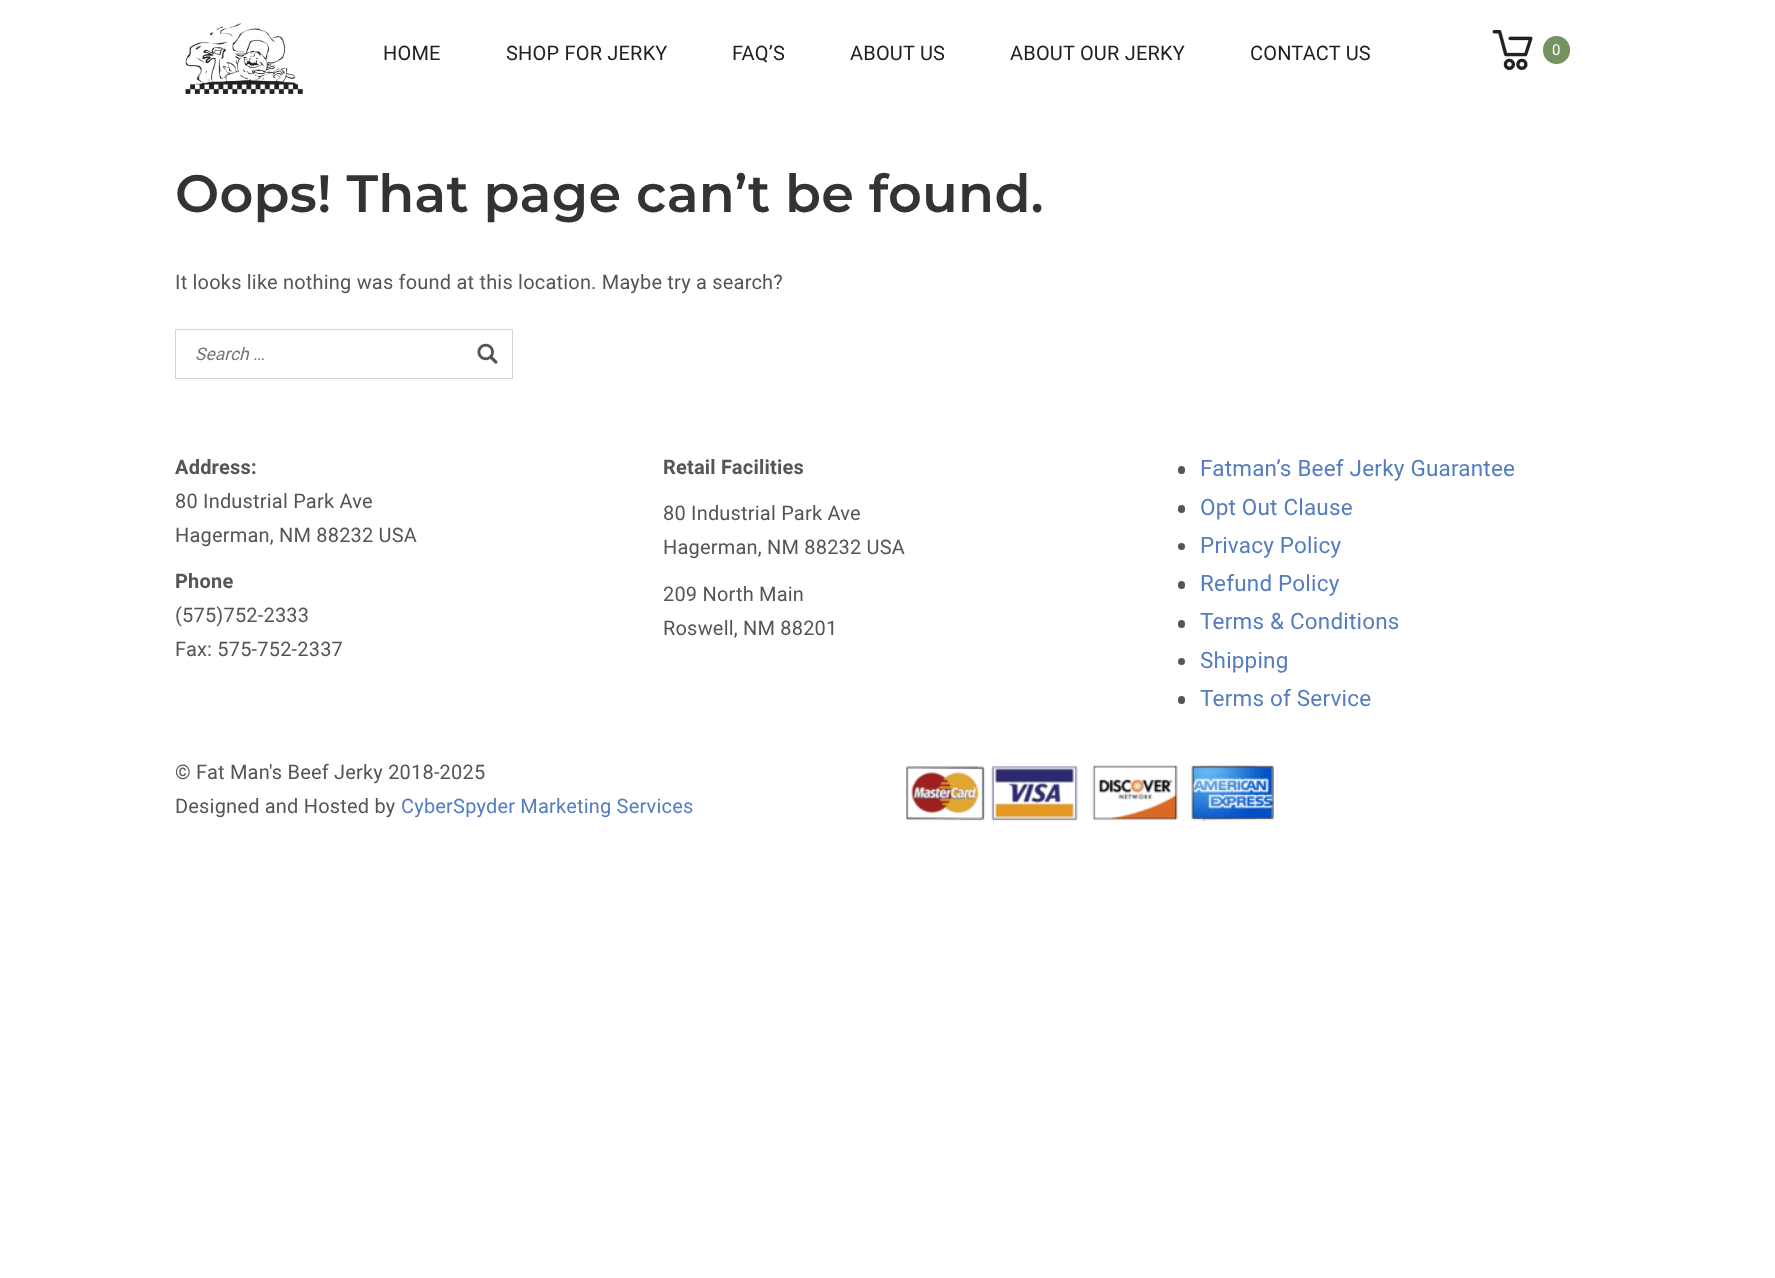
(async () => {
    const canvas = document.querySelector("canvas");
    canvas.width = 1775;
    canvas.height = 1278;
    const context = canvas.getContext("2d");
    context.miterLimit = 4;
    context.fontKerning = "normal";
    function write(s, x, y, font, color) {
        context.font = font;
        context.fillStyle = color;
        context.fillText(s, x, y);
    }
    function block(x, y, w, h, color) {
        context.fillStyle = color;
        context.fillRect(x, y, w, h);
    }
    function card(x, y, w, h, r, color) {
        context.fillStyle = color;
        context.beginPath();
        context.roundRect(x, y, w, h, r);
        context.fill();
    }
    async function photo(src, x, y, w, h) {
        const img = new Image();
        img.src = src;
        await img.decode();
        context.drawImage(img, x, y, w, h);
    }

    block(0, 0, 1775, 1278, "rgb(255, 255, 255)");
    await photo("media/1.png", 185, 23, 118, 71);
    context.letterSpacing = "0.2px";
    write("HOME", 383, 60, "20px Roboto", "rgb(33, 33, 33)");
    write("SHOP FOR JERKY", 506, 60, "20px Roboto", "rgb(33, 33, 33)");
    write("FAQ’S", 732, 60, "20px Roboto", "rgb(33, 33, 33)");
    write("ABOUT US", 850, 60, "20px Roboto", "rgb(33, 33, 33)");
    write("ABOUT OUR JERKY", 1010, 60, "20px Roboto", "rgb(33, 33, 33)");
    write("CONTACT US", 1250, 60, "20px Roboto", "rgb(33, 33, 33)");
    await photo("media/2.png", 1492, 30, 41, 40);
    card(1543, 36, 27, 28, 13.5, "rgb(116, 147, 96)");
    write("0", 1552, 55, "15px Roboto", "rgb(255, 255, 255)");
    write("Oops! That page can’t be found.", 175, 212, "600 52.5px Montserrat", "rgb(51, 51, 51)");
    write("It looks like nothing was found at this location. Maybe try a search?", 175, 289, "20px Roboto", "rgb(85, 85, 85)");
    context.strokeStyle = "rgb(212, 212, 212)";
    context.strokeRect(175.5, 329.5, 337, 49);
    context.letterSpacing = "0px";
    write("Search …", 195, 360, "italic 17.5px Roboto", "rgb(117, 117, 117)");
    await photo("media/3.png", 477, 343, 21, 21);
    context.letterSpacing = "0.2px";
    write("Address:", 175, 474, "bold 20px Roboto", "rgb(85, 85, 85)");
    write("80 Industrial Park Ave", 175, 508, "20px Roboto", "rgb(85, 85, 85)");
    write("Hagerman, NM 88232 USA", 175, 542, "20px Roboto", "rgb(85, 85, 85)");
    write("Phone", 175, 588, "bold 20px Roboto", "rgb(85, 85, 85)");
    write("(575)752-2333", 175, 622, "20px Roboto", "rgb(85, 85, 85)");
    write("Fax: 575-752-2337", 175, 656, "20px Roboto", "rgb(85, 85, 85)");
    write("Retail Facilities", 663, 474, "bold 20px Roboto", "rgb(85, 85, 85)");
    write("80 Industrial Park Ave", 663, 520, "20px Roboto", "rgb(85, 85, 85)");
    write("Hagerman, NM 88232 USA", 663, 554, "20px Roboto", "rgb(85, 85, 85)");
    write("209 North Main", 663, 601, "20px Roboto", "rgb(85, 85, 85)");
    write("Roswell, NM 88201", 663, 635, "20px Roboto", "rgb(85, 85, 85)");
    card(1178, 466, 7, 8, 3.5, "rgb(85, 85, 85)");
    write("Fatman’s Beef Jerky Guarantee", 1200, 476, "22.5px Roboto", "rgb(85, 124, 191)");
    card(1178, 505, 7, 8, 3.5, "rgb(85, 85, 85)");
    write("Opt Out Clause", 1200, 515, "22.5px Roboto", "rgb(85, 124, 191)");
    context.fillStyle = "rgb(85, 85, 85)";
    context.beginPath();
    context.arc(1181.5, 546.5, 3.5, 0, Math.PI * 2);
    context.fill();
    write("Privacy Policy", 1200, 553, "22.5px Roboto", "rgb(85, 124, 191)");
    card(1178, 581, 7, 8, 3.5, "rgb(85, 85, 85)");
    write("Refund Policy", 1200, 591, "22.5px Roboto", "rgb(85, 124, 191)");
    card(1178, 620, 7, 8, 3.5, "rgb(85, 85, 85)");
    write("Terms & Conditions", 1200, 629, "22.5px Roboto", "rgb(85, 124, 191)");
    context.fillStyle = "rgb(85, 85, 85)";
    context.beginPath();
    context.arc(1181.5, 661.5, 3.5, 0, Math.PI * 2);
    context.fill();
    write("Shipping", 1200, 668, "22.5px Roboto", "rgb(85, 124, 191)");
    card(1178, 696, 7, 8, 3.5, "rgb(85, 85, 85)");
    write("Terms of Service", 1200, 706, "22.5px Roboto", "rgb(85, 124, 191)");
    write("© Fat Man's Beef Jerky 2018-2025", 175, 779, "20px Roboto", "rgb(85, 85, 85)");
    write("Designed and Hosted by", 175, 813, "20px Roboto", "rgb(85, 85, 85)");
    write("CyberSpyder Marketing Services", 401, 813, "20px Roboto", "rgb(85, 124, 191)");
    await photo("media/4.png", 906, 765, 368, 58);
})();
